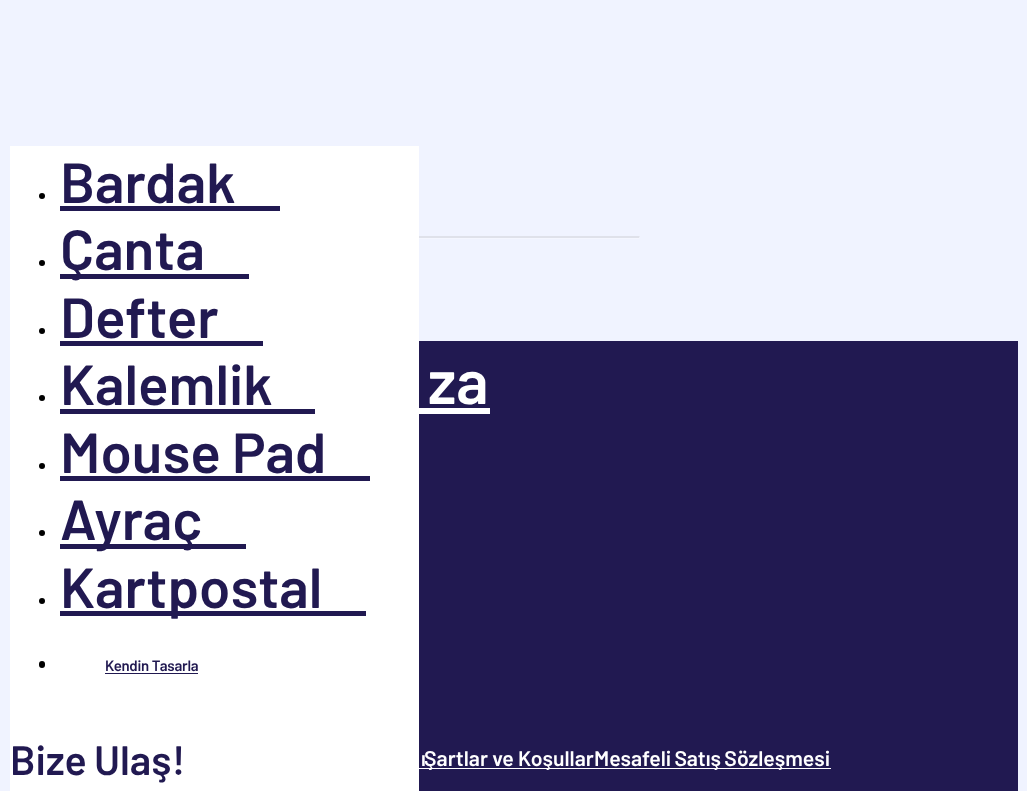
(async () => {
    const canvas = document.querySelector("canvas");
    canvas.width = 1027;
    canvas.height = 791;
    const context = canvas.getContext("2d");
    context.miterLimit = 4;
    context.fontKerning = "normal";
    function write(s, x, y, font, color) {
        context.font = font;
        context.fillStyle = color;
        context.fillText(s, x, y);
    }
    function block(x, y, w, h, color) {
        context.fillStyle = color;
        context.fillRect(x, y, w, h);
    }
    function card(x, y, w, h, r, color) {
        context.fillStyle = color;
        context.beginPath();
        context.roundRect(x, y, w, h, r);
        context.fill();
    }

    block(0, 0, 1027, 791, "rgb(240, 243, 255)");
    context.fillStyle = "rgba(170, 170, 170, 0.25)";
    context.beginPath();
    context.moveTo(10, 236);
    context.lineTo(640, 236);
    context.lineTo(639, 238);
    context.lineTo(11, 238);
    context.closePath();
    context.fill();
    context.fillStyle = "rgb(240, 243, 251)";
    context.beginPath();
    context.moveTo(640, 236);
    context.lineTo(640, 239);
    context.lineTo(639, 237.5);
    context.closePath();
    context.fill();
    context.fillStyle = "rgba(255, 255, 255, 0.25)";
    context.beginPath();
    context.moveTo(640, 239);
    context.lineTo(10, 239);
    context.lineTo(11, 238);
    context.lineTo(639, 238);
    context.closePath();
    context.fill();
    block(10, 146, 409, 645, "rgb(255, 255, 255)");
    context.fillStyle = "rgb(0, 0, 0)";
    context.beginPath();
    context.arc(42, 196, 3, 0, Math.PI * 2);
    context.fill();
    write("Bardak", 60, 203, "600 56.5px Barlow", "rgb(33, 25, 81)");
    block(60, 206, 220, 5, "rgb(33, 25, 81)");
    context.fillStyle = "rgb(0, 0, 0)";
    context.beginPath();
    context.arc(42, 263, 3, 0, Math.PI * 2);
    context.fill();
    block(60, 274, 189, 5, "rgb(33, 25, 81)");
    write("Çanta", 60, 270, "600 56.5px Barlow", "rgb(33, 25, 81)");
    context.fillStyle = "rgb(0, 0, 0)";
    context.beginPath();
    context.arc(42, 331, 3, 0, Math.PI * 2);
    context.fill();
    write("Defter", 60, 338, "600 56.5px Barlow", "rgb(33, 25, 81)");
    block(60, 341, 203, 5, "rgb(33, 25, 81)");
    context.fillStyle = "rgb(0, 0, 0)";
    context.beginPath();
    context.arc(42, 398, 3, 0, Math.PI * 2);
    context.fill();
    write("Kalemlik", 60, 405, "600 56.5px Barlow", "rgb(33, 25, 81)");
    block(60, 409, 255, 5, "rgb(33, 25, 81)");
    context.fillStyle = "rgb(0, 0, 0)";
    context.beginPath();
    context.arc(42, 466, 3, 0, Math.PI * 2);
    context.fill();
    write("Mouse Pad", 60, 473, "600 56.5px Barlow", "rgb(33, 25, 81)");
    block(60, 476, 310, 5, "rgb(33, 25, 81)");
    context.fillStyle = "rgb(0, 0, 0)";
    context.beginPath();
    context.arc(42, 533, 3, 0, Math.PI * 2);
    context.fill();
    block(60, 544, 186, 5, "rgb(33, 25, 81)");
    write("Ayraç", 60, 540, "600 56.5px Barlow", "rgb(33, 25, 81)");
    context.fillStyle = "rgb(0, 0, 0)";
    context.beginPath();
    context.arc(42, 601, 3, 0, Math.PI * 2);
    context.fill();
    block(60, 611, 306, 5, "rgb(33, 25, 81)");
    write("Kartpostal", 60, 608, "600 56.5px Barlow", "rgb(33, 25, 81)");
    card(39, 661, 6, 7, 3, "rgb(0, 0, 0)");
    context.letterSpacing = "-0.25px";
    write("Kendin Tasarla", 105, 671, "600 15px Barlow", "rgb(33, 25, 81)");
    block(105, 673, 93, 1, "rgb(33, 25, 81)");
    context.letterSpacing = "0px";
    context.wordSpacing = "-1px";
    write("Bize Ulaş!", 10, 775, "600 41px Barlow", "rgb(33, 25, 81)");
    block(419, 341, 599, 450, "rgb(33, 25, 81)");
    context.wordSpacing = "0px";
    write("za", 428, 404, "600 62px Barlow", "rgb(255, 255, 255)");
    block(419, 408, 71, 6, "rgb(255, 255, 255)");
    context.wordSpacing = "-1px";
    write("ı", 421, 766, "600 21.25px Barlow", "rgb(255, 255, 255)");
    block(419, 768, 412, 1, "rgb(255, 255, 255)");
    context.wordSpacing = "0px";
    write("Şartlar ve Koşullar", 424, 766, "600 21.25px Barlow", "rgb(255, 255, 255)");
    context.wordSpacing = "-1px";
    write("Mesafeli Satış Sözleşmesi", 594, 766, "600 21.25px Barlow", "rgb(255, 255, 255)");
})();
